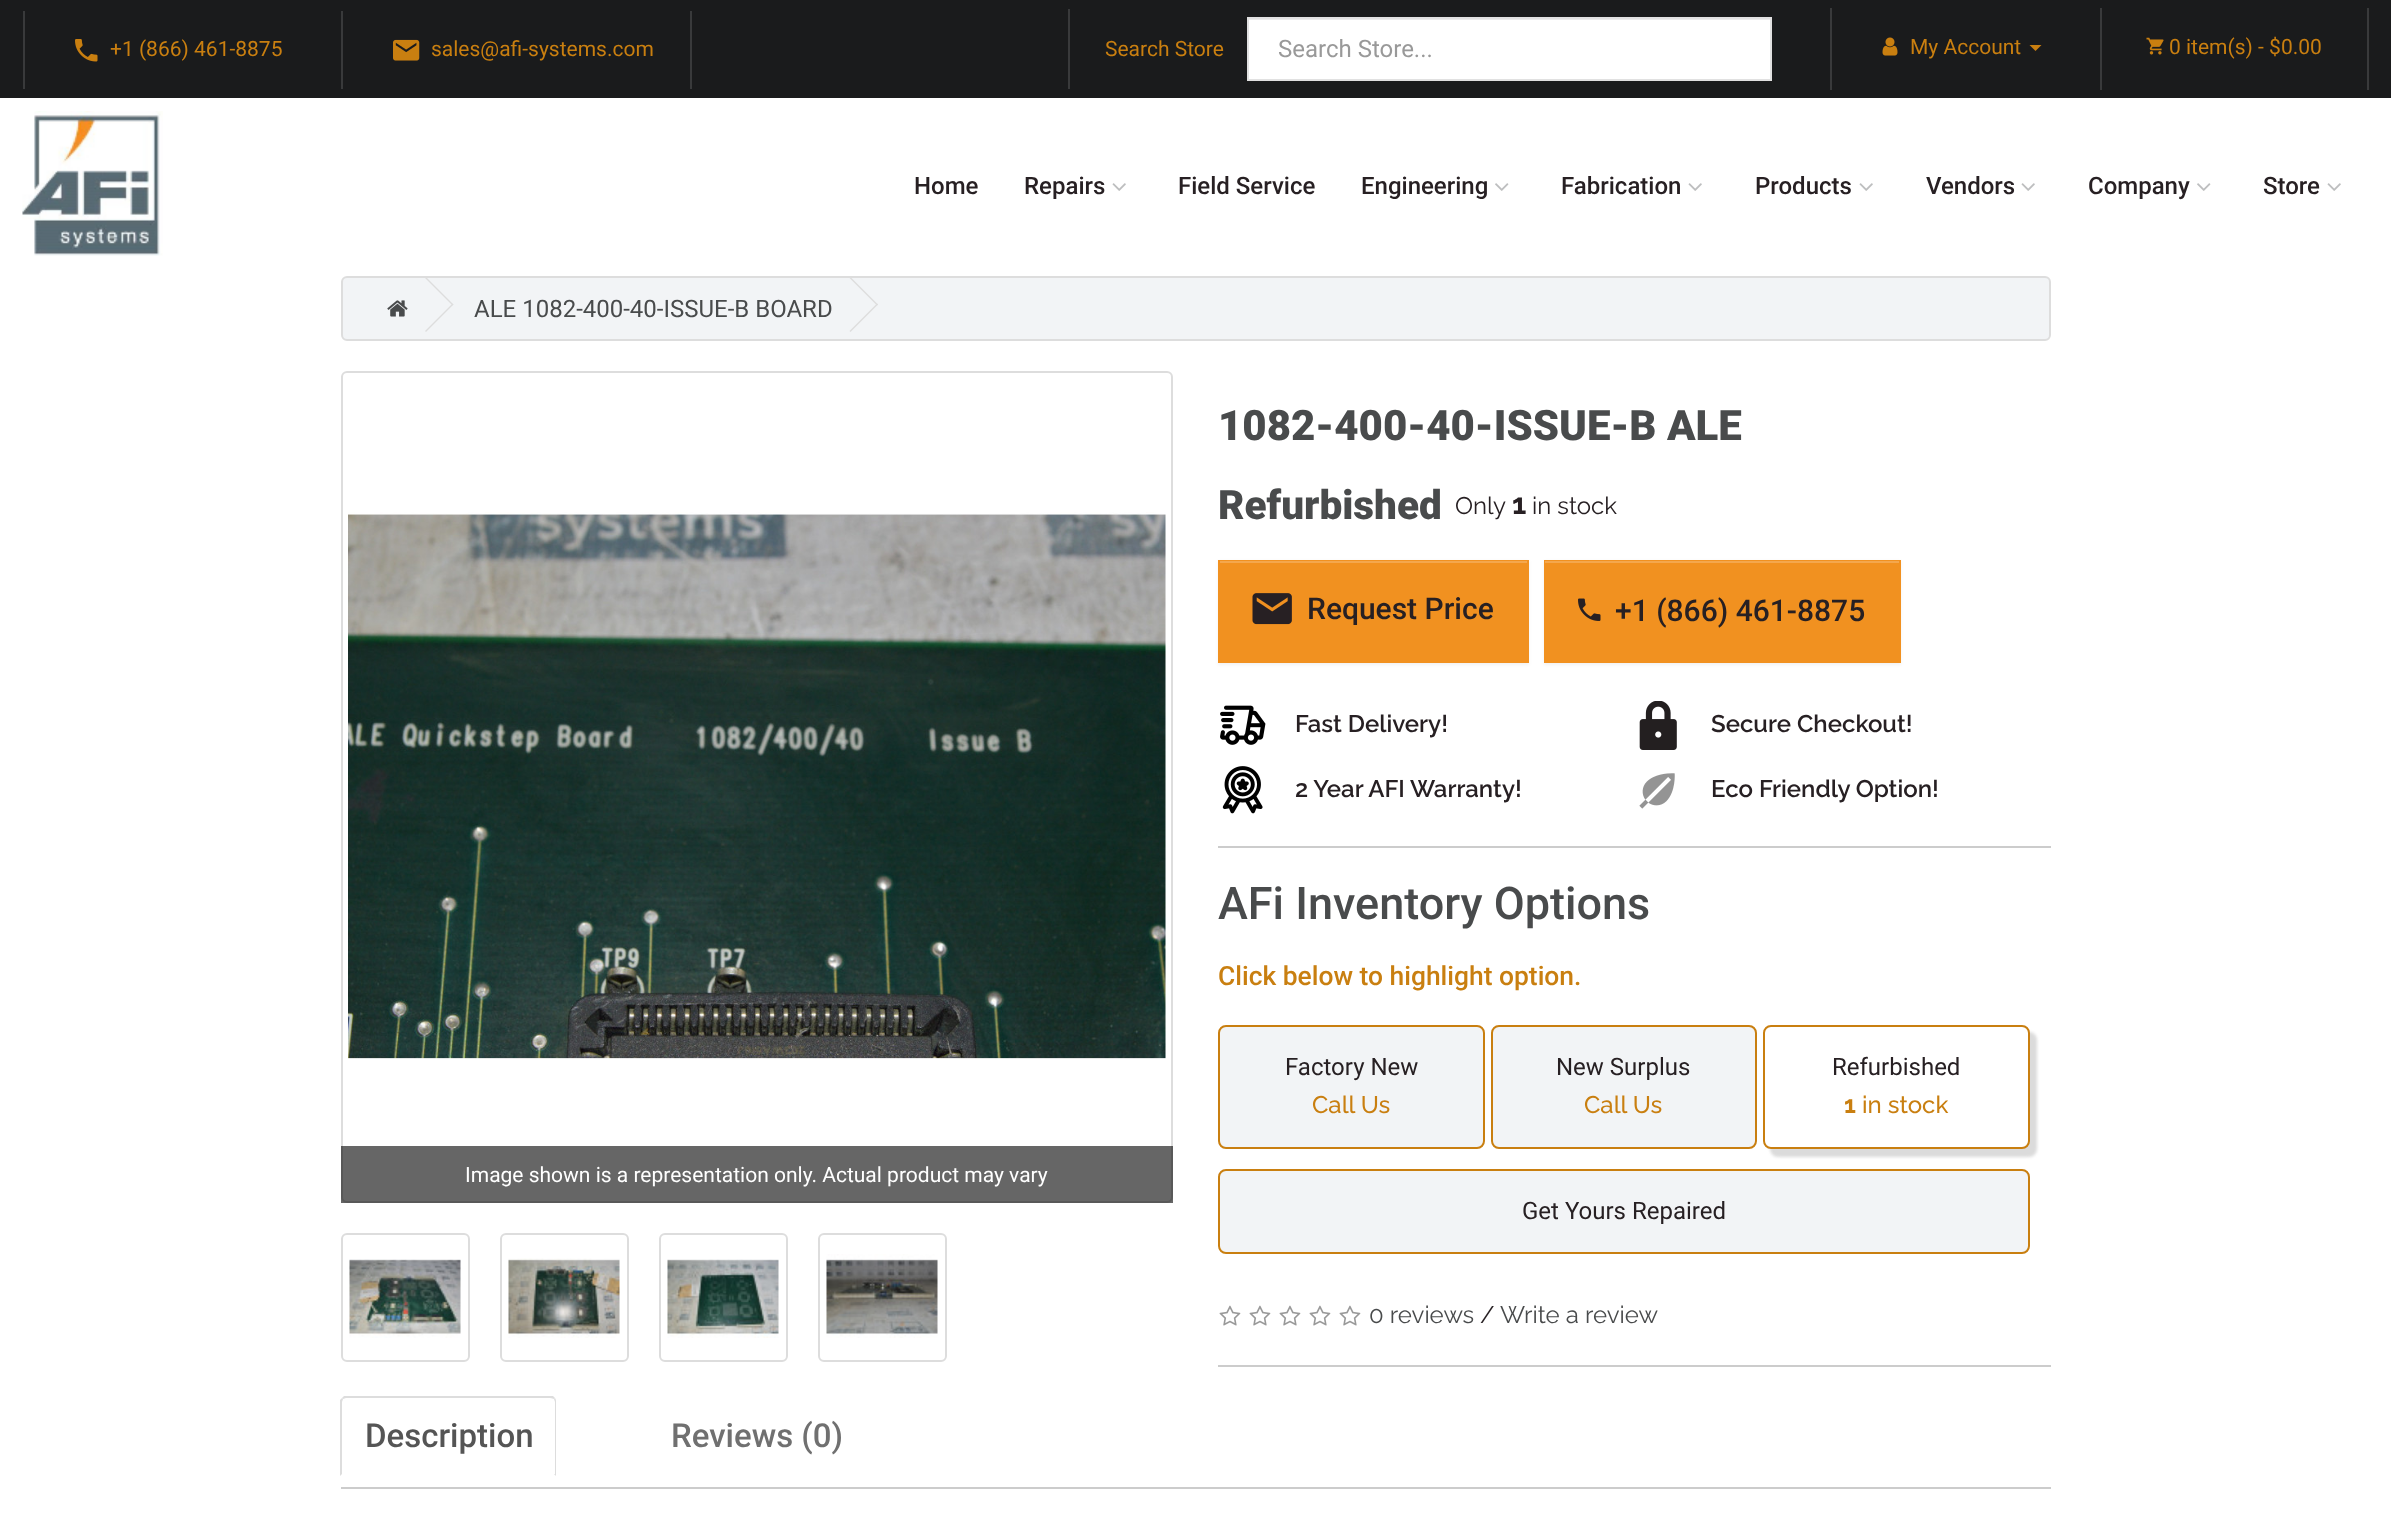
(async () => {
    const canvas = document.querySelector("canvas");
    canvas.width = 2391;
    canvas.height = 1513;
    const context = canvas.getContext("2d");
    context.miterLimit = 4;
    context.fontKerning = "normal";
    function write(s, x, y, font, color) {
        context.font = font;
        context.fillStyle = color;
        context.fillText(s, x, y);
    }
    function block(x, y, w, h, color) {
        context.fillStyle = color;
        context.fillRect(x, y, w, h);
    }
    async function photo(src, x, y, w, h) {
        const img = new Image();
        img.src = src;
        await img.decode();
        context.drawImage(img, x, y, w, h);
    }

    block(0, 0, 2391, 1513, "rgb(255, 255, 255)");
    block(0, 0, 2391, 98, "rgb(26, 27, 28)");
    block(23, 11, 2, 78, "rgb(57, 58, 59)");
    await photo("media/1.png", 75, 39, 23, 23);
    write("+1 (866) 461-8875", 110, 56, "21px Roboto", "rgb(201, 127, 16)");
    block(690, 11, 2, 78, "rgb(57, 58, 59)");
    block(341, 11, 2, 78, "rgb(57, 58, 59)");
    await photo("media/2.png", 393, 39, 27, 22);
    write("sales@afi-systems.com", 431, 56, "21px Roboto", "rgb(201, 127, 16)");
    block(1068, 9, 2, 80, "rgb(57, 58, 59)");
    write("Search Store", 1105, 56, "21px Roboto", "rgb(201, 127, 16)");
    block(1249, 20, 521, 59, "rgb(255, 255, 255)");
    block(1248, 19, 522, 1, "rgb(236, 236, 236)");
    context.strokeStyle = "rgb(225, 225, 225)";
    context.lineWidth = 2;
    context.strokeRect(1248, 18, 523, 62);
    write("Search Store...", 1278, 57, "24px Roboto", "rgb(153, 153, 153)");
    block(1830, 8, 2, 82, "rgb(57, 58, 59)");
    await photo("media/3.png", 1882, 37, 16, 19);
    write("My Account", 1910, 54, "21px Roboto", "rgb(201, 127, 16)");
    context.beginPath();
    context.moveTo(2029.5, 45);
    context.lineTo(2041.5, 45);
    context.lineTo(2035.5, 51);
    context.closePath();
    context.fill();
    block(2367, 8, 2, 82, "rgb(57, 58, 59)");
    block(2100, 8, 2, 82, "rgb(57, 58, 59)");
    await photo("media/4.png", 2146, 37, 18, 18);
    write("0 item(s) - $0.00", 2169, 54, "21px Roboto", "rgb(201, 127, 16)");
    await photo("media/5.png", 22, 111, 141, 145);
    write("Home", 914, 194, "500 24px Roboto", "rgb(39, 32, 35)");
    write("Repairs", 1024, 194, "500 24px Roboto", "rgb(39, 32, 35)");
    await photo("media/6.png", 1112, 183, 14, 8);
    write("Field Service", 1178, 194, "500 24px Roboto", "rgb(39, 32, 35)");
    write("Engineering", 1361, 194, "500 24px Roboto", "rgb(39, 32, 35)");
    await photo("media/7.png", 1495, 183, 14, 8);
    write("Fabrication", 1561, 194, "500 24px Roboto", "rgb(39, 32, 35)");
    await photo("media/6.png", 1688, 183, 14, 8);
    write("Products", 1755, 194, "500 24px Roboto", "rgb(39, 32, 35)");
    await photo("media/6.png", 1859, 183, 14, 8);
    write("Vendors", 1926, 194, "500 24px Roboto", "rgb(39, 32, 35)");
    await photo("media/6.png", 2021, 183, 14, 8);
    write("Company", 2088, 194, "500 24px Roboto", "rgb(39, 32, 35)");
    await photo("media/7.png", 2197, 183, 14, 8);
    write("Store", 2263, 194, "500 24px Roboto", "rgb(39, 32, 35)");
    await photo("media/6.png", 2327, 183, 14, 8);
    context.fillStyle = "rgb(242, 244, 246)";
    context.beginPath();
    context.roundRect(342, 277, 1708, 63, 5);
    context.fill();
    context.strokeStyle = "rgb(221, 221, 221)";
    context.stroke();
    await photo("media/8.png", 387, 300, 21, 17);
    context.fillStyle = "rgb(221, 221, 221)";
    context.beginPath();
    context.moveTo(425, 278);
    context.lineTo(426, 277);
    context.lineTo(453.5, 304.5);
    context.lineTo(452.5, 305.5);
    context.closePath();
    context.fill();
    context.beginPath();
    context.moveTo(425, 331);
    context.lineTo(452.5, 303.5);
    context.lineTo(453.5, 304.5);
    context.lineTo(426, 332);
    context.closePath();
    context.fill();
    write("ALE 1082-400-40-ISSUE-B BOARD", 474, 317, "24px Roboto", "rgb(73, 75, 76)");
    context.fillStyle = "rgb(221, 221, 221)";
    context.beginPath();
    context.moveTo(849.5, 278);
    context.lineTo(850.5, 277);
    context.lineTo(878, 304.5);
    context.lineTo(877, 305.5);
    context.closePath();
    context.fill();
    context.beginPath();
    context.moveTo(849.5, 331);
    context.lineTo(877, 303.5);
    context.lineTo(878, 304.5);
    context.lineTo(850.5, 332);
    context.closePath();
    context.fill();
    context.beginPath();
    context.roundRect(342, 372, 830, 830, 5);
    context.stroke();
    await photo("media/9.png", 348, 512, 818, 547);
    block(341, 1146, 832, 57, "rgba(0, 0, 0, 0.6)");
    write("Image shown is a representation only. Actual product may vary", 465, 1182, "21px Roboto", "rgb(255, 255, 255)");
    context.beginPath();
    context.roundRect(342, 1234, 127, 127, 5);
    context.stroke();
    await photo("media/10.png", 349, 1259, 112, 79);
    context.beginPath();
    context.roundRect(501, 1234, 127, 127, 5);
    context.stroke();
    await photo("media/11.png", 508, 1258, 112, 80);
    context.beginPath();
    context.roundRect(660, 1234, 127, 127, 5);
    context.stroke();
    await photo("media/12.png", 667, 1259, 112, 79);
    context.beginPath();
    context.roundRect(819, 1234, 127, 127, 5);
    context.stroke();
    await photo("media/13.png", 826, 1254, 112, 84);
    write("1082-400-40-ISSUE-B ALE", 1218, 440, "900 42px Roboto", "rgb(73, 75, 76)");
    write("Refurbished", 1218, 519, "900 40.5px Roboto", "rgb(73, 75, 76)");
    write("Only", 1455, 514, "24px Raleway", "rgb(39, 32, 35)");
    write("1", 1512, 514, "bold 29px Raleway", "rgb(39, 32, 35)");
    write("in stock", 1532, 514, "24px Raleway", "rgb(39, 32, 35)");
    context.fillStyle = "rgba(0, 0, 0, 0.05)";
    context.filter = "blur(1.5px)";
    context.beginPath();
    context.rect(1218, 561, 311, 104);
    context.fill();
    context.filter = "none";
    block(1218, 560, 311, 103, "rgb(241, 145, 32)");
    block(1220, 561, 307, 2, "rgb(244, 167, 77)");
    await photo("media/14.png", 1252, 593, 40, 32);
    write("Request Price", 1307, 619, "500 30px Roboto", "rgb(39, 32, 35)");
    context.fillStyle = "rgba(0, 0, 0, 0.05)";
    context.filter = "blur(1.5px)";
    context.beginPath();
    context.rect(1544, 561, 357, 104);
    context.fill();
    context.filter = "none";
    block(1544, 560, 357, 103, "rgb(241, 145, 32)");
    block(1545, 561, 354, 2, "rgb(244, 167, 77)");
    await photo("media/15.png", 1578, 598, 23, 23);
    write("+1 (866) 461-8875", 1615, 621, "500 30px Roboto", "rgb(39, 32, 35)");
    await photo("media/16.png", 1220, 705, 46, 40);
    write("Fast Delivery!", 1295, 732, "600 24px Raleway", "rgb(39, 32, 35)");
    await photo("media/17.png", 1222, 766, 41, 48);
    write("2 Year AFI Warranty!", 1295, 797, "600 24px Raleway", "rgb(39, 32, 35)");
    await photo("media/18.png", 1639, 701, 38, 49);
    write("Secure Checkout!", 1711, 732, "600 24px Raleway", "rgb(39, 32, 35)");
    await photo("media/19.png", 1639, 773, 36, 36);
    write("Eco Friendly Option!", 1711, 797, "600 24px Raleway", "rgb(39, 32, 35)");
    block(1218, 846, 833, 2, "rgb(204, 204, 204)");
    write("AFi Inventory Options", 1218, 919, "500 45px Roboto", "rgb(73, 75, 76)");
    write("Click below to highlight option.", 1218, 985, "500 26.4px Roboto", "rgb(201, 127, 16)");
    context.fillStyle = "rgb(242, 244, 246)";
    context.beginPath();
    context.roundRect(1219, 1026, 265, 122, 7);
    context.fill();
    context.strokeStyle = "rgb(201, 127, 16)";
    context.stroke();
    write("Factory New", 1285, 1075, "24px Roboto", "rgb(39, 32, 35)");
    write("Call Us", 1312, 1113, "500 24px Raleway", "rgb(201, 127, 16)");
    context.fillStyle = "rgb(242, 244, 246)";
    context.beginPath();
    context.roundRect(1492, 1026, 264, 122, 7);
    context.fill();
    context.stroke();
    write("New Surplus", 1556, 1075, "24px Roboto", "rgb(39, 32, 35)");
    write("Call Us", 1584, 1113, "500 24px Raleway", "rgb(201, 127, 16)");
    context.fillStyle = "rgba(209, 209, 209, 0.78)";
    context.filter = "blur(1.5px)";
    context.beginPath();
    context.roundRect(1770, 1032, 267, 125, 8);
    context.fill();
    context.filter = "none";
    context.fillStyle = "rgb(255, 255, 255)";
    context.beginPath();
    context.roundRect(1764, 1026, 265, 122, 7);
    context.fill();
    context.stroke();
    write("Refurbished", 1832, 1075, "24px Roboto", "rgb(39, 32, 35)");
    write("1", 1844, 1113, "bold 24px Raleway", "rgb(201, 127, 16)");
    write("in stock", 1862, 1113, "500 24px Raleway", "rgb(201, 127, 16)");
    context.fillStyle = "rgb(242, 244, 246)";
    context.beginPath();
    context.roundRect(1219, 1170, 810, 83, 7);
    context.fill();
    context.stroke();
    write("Get Yours Repaired", 1522, 1219, "24px Roboto", "rgb(39, 32, 35)");
    await photo("media/20.png", 1219, 1305, 22, 21);
    await photo("media/20.png", 1249, 1305, 22, 21);
    await photo("media/20.png", 1279, 1305, 22, 21);
    await photo("media/20.png", 1309, 1305, 22, 21);
    await photo("media/20.png", 1339, 1305, 22, 21);
    write("0 reviews", 1369, 1323, "24px Raleway", "rgb(73, 75, 76)");
    write("/", 1480, 1323, "24px Raleway", "rgb(39, 32, 35)");
    write("Write a review", 1500, 1323, "24px Raleway", "rgb(73, 75, 76)");
    block(1218, 1365, 833, 2, "rgb(204, 204, 204)");
    block(341, 1487, 1710, 2, "rgb(204, 204, 204)");
    context.fillStyle = "rgb(221, 221, 221)";
    context.beginPath();
    context.moveTo(346, 1398);
    context.lineTo(343, 1399);
    context.lineTo(342, 1398);
    context.lineTo(344, 1396);
    context.lineTo(553, 1396);
    context.lineTo(555, 1398);
    context.lineTo(554, 1399);
    context.bezierCurveTo(553, 1399, 552, 1398, 550, 1398);
    context.closePath();
    context.fill();
    context.beginPath();
    context.moveTo(555, 1398);
    context.bezierCurveTo(556, 1399, 556, 1401, 556, 1402);
    context.lineTo(556, 1476);
    context.lineTo(554, 1474);
    context.lineTo(555, 1474);
    context.lineTo(555, 1402);
    context.lineTo(554, 1399);
    context.closePath();
    context.fill();
    context.beginPath();
    context.moveTo(340, 1476);
    context.lineTo(340, 1400);
    context.lineTo(342, 1398);
    context.lineTo(343, 1399);
    context.lineTo(342, 1402);
    context.lineTo(342, 1474);
    context.closePath();
    context.fill();
    write("Description", 365, 1447, "500 33px Roboto", "rgb(85, 85, 85)");
    write("Reviews (0)", 671, 1447, "500 33px Roboto", "rgb(112, 112, 112)");
})();
